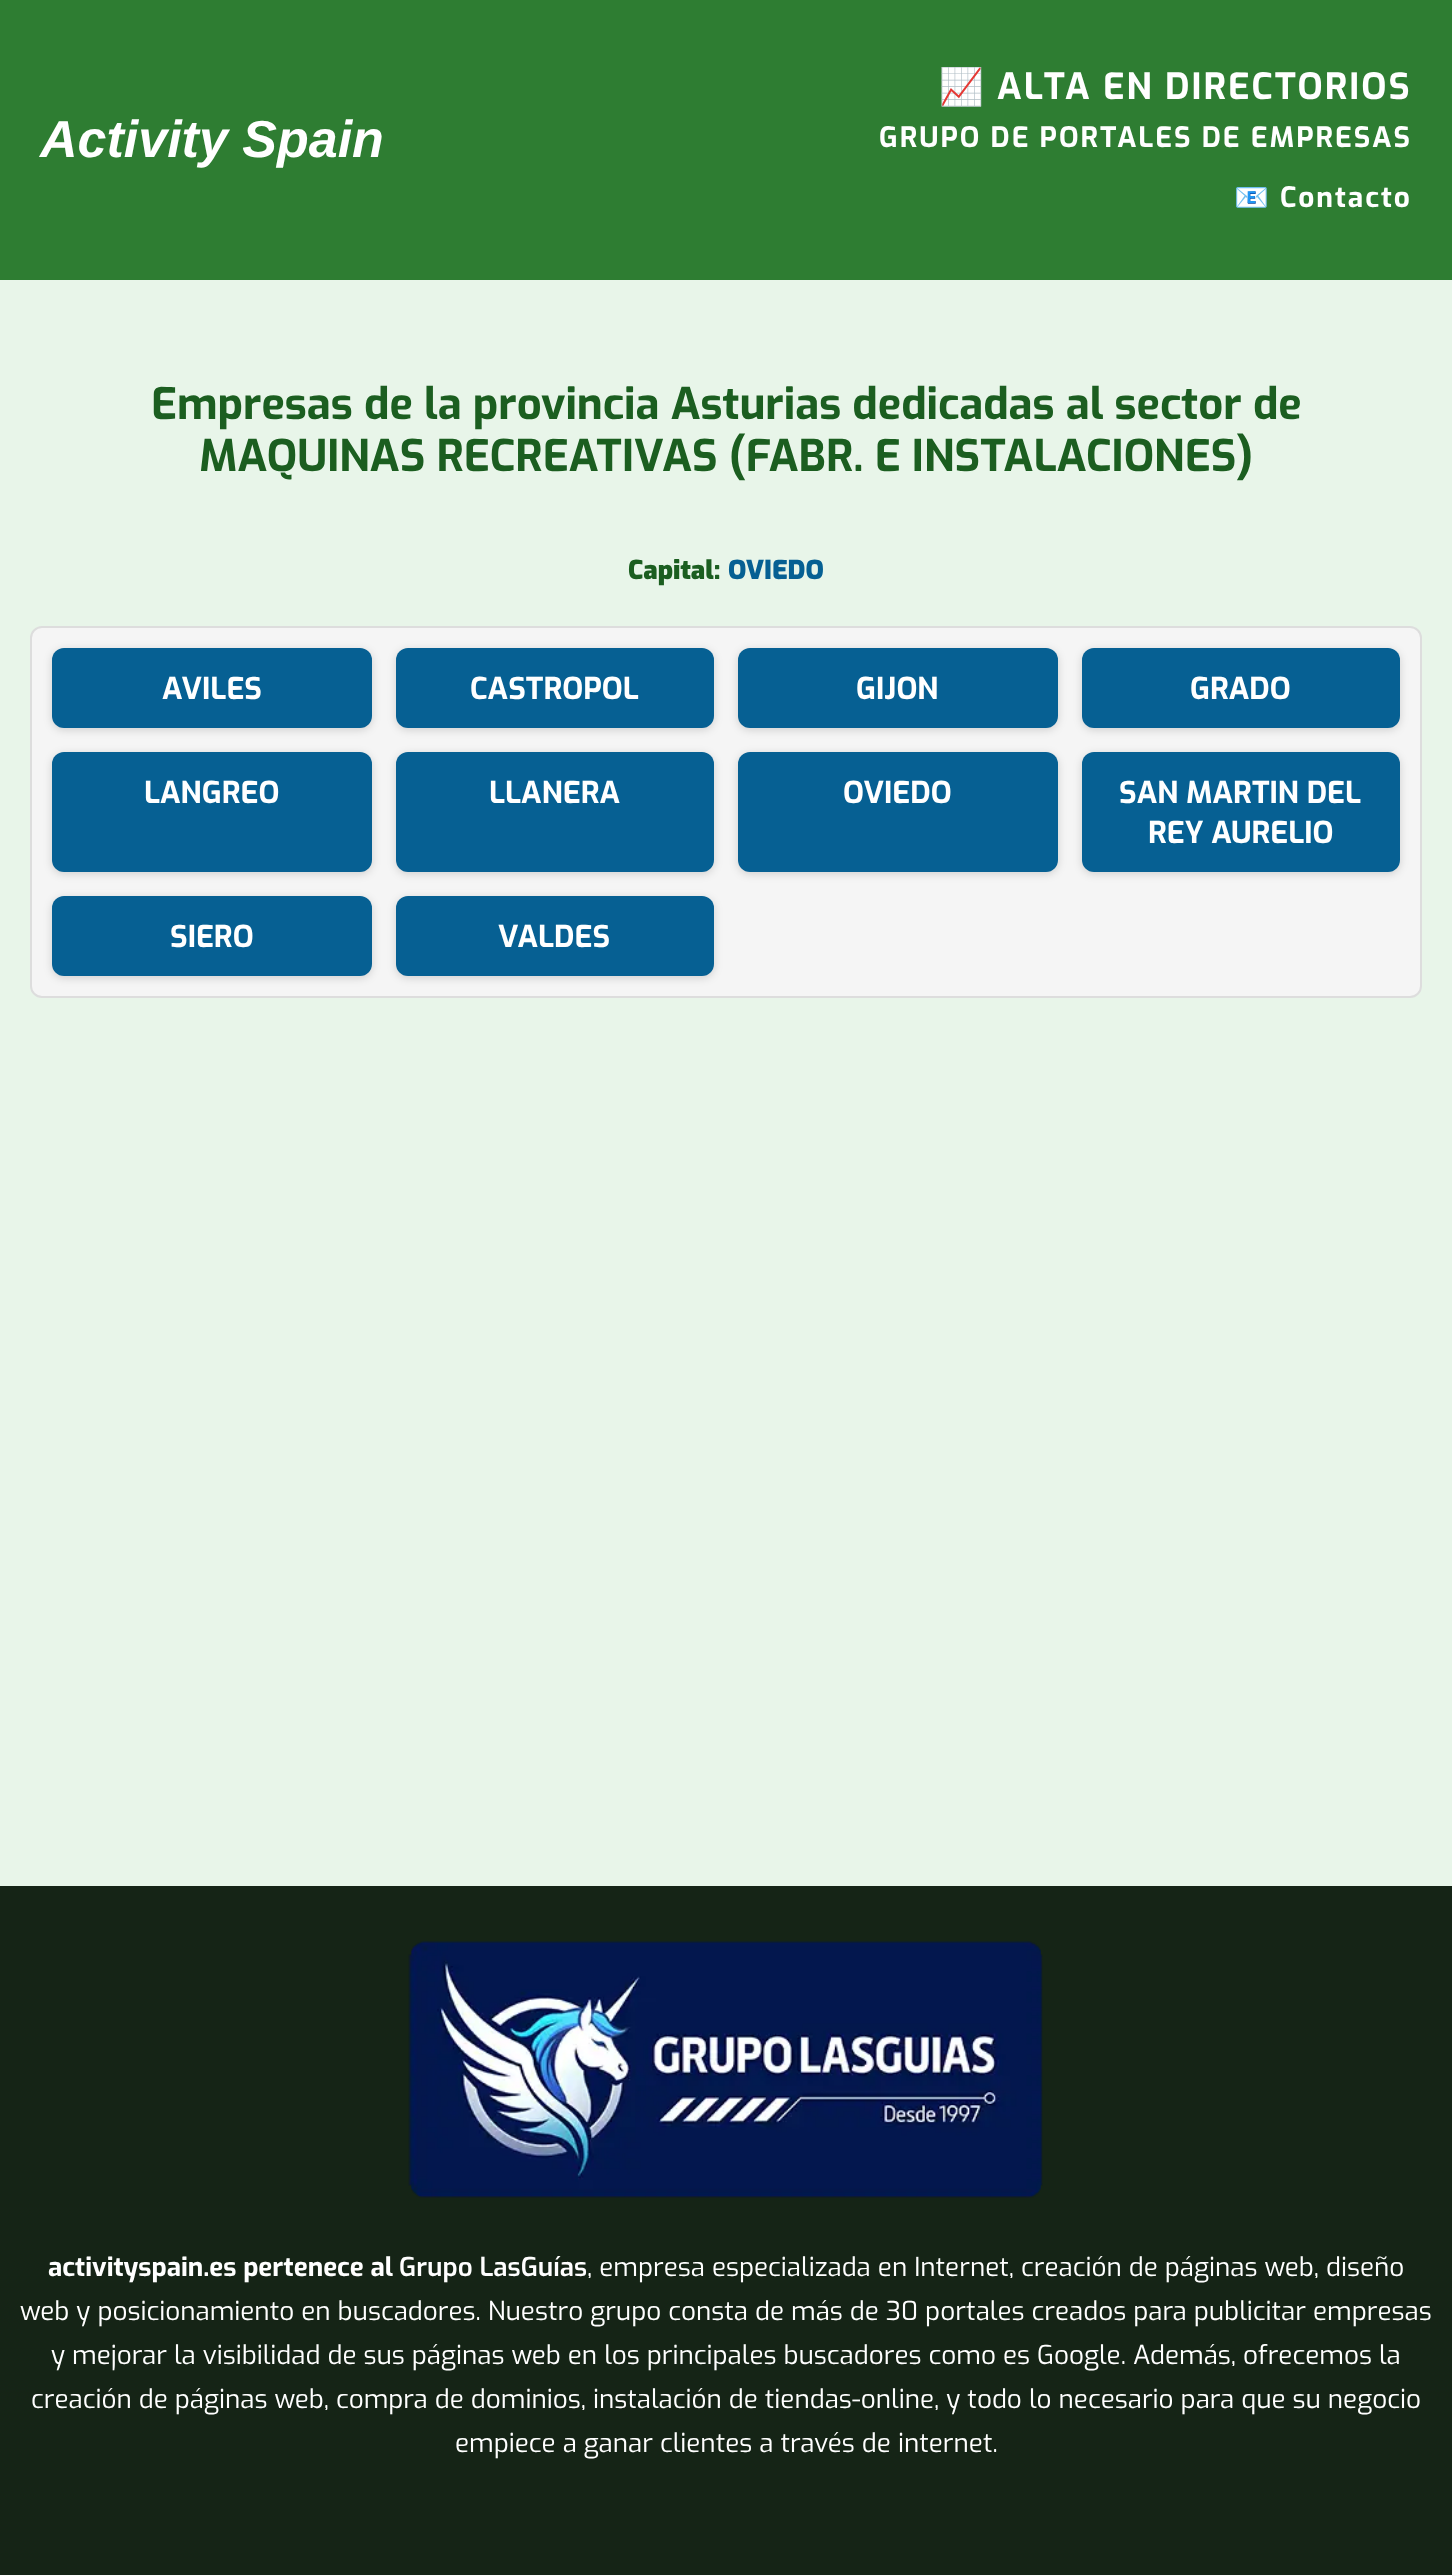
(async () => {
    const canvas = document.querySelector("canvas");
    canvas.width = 1452;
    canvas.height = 2575;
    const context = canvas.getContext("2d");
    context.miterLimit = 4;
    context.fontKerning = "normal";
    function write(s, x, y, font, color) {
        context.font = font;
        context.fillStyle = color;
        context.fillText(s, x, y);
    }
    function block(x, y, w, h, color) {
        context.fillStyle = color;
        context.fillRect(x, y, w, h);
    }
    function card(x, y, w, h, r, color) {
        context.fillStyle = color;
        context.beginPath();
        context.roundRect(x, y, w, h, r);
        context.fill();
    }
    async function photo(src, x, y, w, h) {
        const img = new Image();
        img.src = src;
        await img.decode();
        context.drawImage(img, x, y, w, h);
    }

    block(0, 0, 1452, 2575, "rgb(46, 125, 50)");
    write("Activity Spain", 40, 157, "italic bold 52px Liberation Sans", "rgb(255, 255, 255)");
    context.letterSpacing = "2px";
    write("📈", 939, 99, "bold 36px Noto Color Emoji", "rgb(255, 255, 255)");
    write("ALTA EN DIRECTORIOS", 997, 99, "bold 36px Exo", "rgb(255, 255, 255)");
    write("GRUPO DE PORTALES DE EMPRESAS", 879, 147, "bold 28px Exo", "rgb(255, 255, 255)");
    write("📧", 1234, 207, "bold 28px Noto Color Emoji", "rgb(255, 255, 255)");
    write("Contacto", 1280, 207, "bold 28px Exo", "rgb(255, 255, 255)");
    block(0, 280, 1452, 1606, "rgb(232, 245, 233)");
    context.letterSpacing = "0px";
    write("Empresas de la provincia Asturias dedicadas al sector de", 151, 419, "bold 43.55px Exo", "rgb(27, 94, 32)");
    write("MAQUINAS RECREATIVAS (FABR. E INSTALACIONES)", 199, 471, "bold 43.55px Exo", "rgb(27, 94, 32)");
    write("Capital:", 628, 579, "900 26px Exo", "rgb(27, 94, 32)");
    write("OVIEDO", 728, 579, "900 26px Exo", "rgb(6, 96, 147)");
    context.fillStyle = "rgb(245, 245, 245)";
    context.beginPath();
    context.roundRect(31, 627, 1390, 370, 11);
    context.fill();
    context.strokeStyle = "rgb(221, 221, 221)";
    context.lineWidth = 2;
    context.stroke();
    context.fillStyle = "rgba(0, 0, 0, 0.15)";
    context.filter = "blur(4px)";
    context.beginPath();
    context.roundRect(52, 650, 320, 80, 12);
    context.fill();
    context.filter = "none";
    card(52, 648, 320, 80, 12, "rgb(6, 96, 147)");
    write("AVILES", 162, 699, "bold 30px Exo", "rgb(255, 255, 255)");
    context.fillStyle = "rgba(0, 0, 0, 0.15)";
    context.filter = "blur(4px)";
    context.beginPath();
    context.roundRect(396, 650, 318, 80, 12);
    context.fill();
    context.filter = "none";
    card(396, 648, 318, 80, 12, "rgb(6, 96, 147)");
    write("CASTROPOL", 470, 699, "bold 30px Exo", "rgb(255, 255, 255)");
    context.fillStyle = "rgba(0, 0, 0, 0.15)";
    context.filter = "blur(4px)";
    context.beginPath();
    context.roundRect(738, 650, 320, 80, 12);
    context.fill();
    context.filter = "none";
    card(738, 648, 320, 80, 12, "rgb(6, 96, 147)");
    write("GIJON", 856, 699, "bold 30px Exo", "rgb(255, 255, 255)");
    context.fillStyle = "rgba(0, 0, 0, 0.15)";
    context.filter = "blur(4px)";
    context.beginPath();
    context.roundRect(1082, 650, 318, 80, 12);
    context.fill();
    context.filter = "none";
    card(1082, 648, 318, 80, 12, "rgb(6, 96, 147)");
    write("GRADO", 1190, 699, "bold 30px Exo", "rgb(255, 255, 255)");
    context.fillStyle = "rgba(0, 0, 0, 0.15)";
    context.filter = "blur(4px)";
    context.beginPath();
    context.roundRect(52, 754, 320, 120, 12);
    context.fill();
    context.filter = "none";
    card(52, 752, 320, 120, 12, "rgb(6, 96, 147)");
    write("LANGREO", 144, 803, "bold 30px Exo", "rgb(255, 255, 255)");
    context.fillStyle = "rgba(0, 0, 0, 0.15)";
    context.filter = "blur(4px)";
    context.beginPath();
    context.roundRect(396, 754, 318, 120, 12);
    context.fill();
    context.filter = "none";
    card(396, 752, 318, 120, 12, "rgb(6, 96, 147)");
    write("LLANERA", 489, 803, "bold 30px Exo", "rgb(255, 255, 255)");
    context.fillStyle = "rgba(0, 0, 0, 0.15)";
    context.filter = "blur(4px)";
    context.beginPath();
    context.roundRect(738, 754, 320, 120, 12);
    context.fill();
    context.filter = "none";
    card(738, 752, 320, 120, 12, "rgb(6, 96, 147)");
    write("OVIEDO", 843, 803, "bold 30px Exo", "rgb(255, 255, 255)");
    context.fillStyle = "rgba(0, 0, 0, 0.15)";
    context.filter = "blur(4px)";
    context.beginPath();
    context.roundRect(1082, 754, 318, 120, 12);
    context.fill();
    context.filter = "none";
    card(1082, 752, 318, 120, 12, "rgb(6, 96, 147)");
    write("SAN MARTIN DEL", 1119, 803, "bold 30px Exo", "rgb(255, 255, 255)");
    write("REY AURELIO", 1148, 843, "bold 30px Exo", "rgb(255, 255, 255)");
    context.fillStyle = "rgba(0, 0, 0, 0.15)";
    context.filter = "blur(4px)";
    context.beginPath();
    context.roundRect(52, 898, 320, 80, 12);
    context.fill();
    context.filter = "none";
    card(52, 896, 320, 80, 12, "rgb(6, 96, 147)");
    write("SIERO", 170, 947, "bold 30px Exo", "rgb(255, 255, 255)");
    context.fillStyle = "rgba(0, 0, 0, 0.15)";
    context.filter = "blur(4px)";
    context.beginPath();
    context.roundRect(396, 898, 318, 80, 12);
    context.fill();
    context.filter = "none";
    card(396, 896, 318, 80, 12, "rgb(6, 96, 147)");
    write("VALDES", 498, 947, "bold 30px Exo", "rgb(255, 255, 255)");
    block(0, 1886, 1452, 689, "rgb(21, 36, 22)");
    await photo("media/1.png", 408, 1941, 635, 257);
    write("activityspain.es pertenece al", 48, 2276, "bold 26px Exo", "rgb(255, 255, 255)");
    write("Grupo LasGuías", 399, 2276, "600 26px Exo", "rgb(255, 255, 255)");
    write(", empresa especializada en Internet, creación de páginas web, diseño", 587, 2276, "26px Exo", "rgb(255, 255, 255)");
    write("web y posicionamiento en buscadores. Nuestro grupo consta de más de 30 portales creados para publicitar empresas", 20, 2320, "26px Exo", "rgb(255, 255, 255)");
    write("y mejorar la visibilidad de sus páginas web en los principales buscadores como es Google. Además, ofrecemos la", 51, 2364, "26px Exo", "rgb(255, 255, 255)");
    write("creación de páginas web, compra de dominios, instalación de tiendas-online, y todo lo necesario para que su negocio", 31, 2408, "26px Exo", "rgb(255, 255, 255)");
    write("empiece a ganar clientes a través de internet.", 455, 2452, "26px Exo", "rgb(255, 255, 255)");
})();
